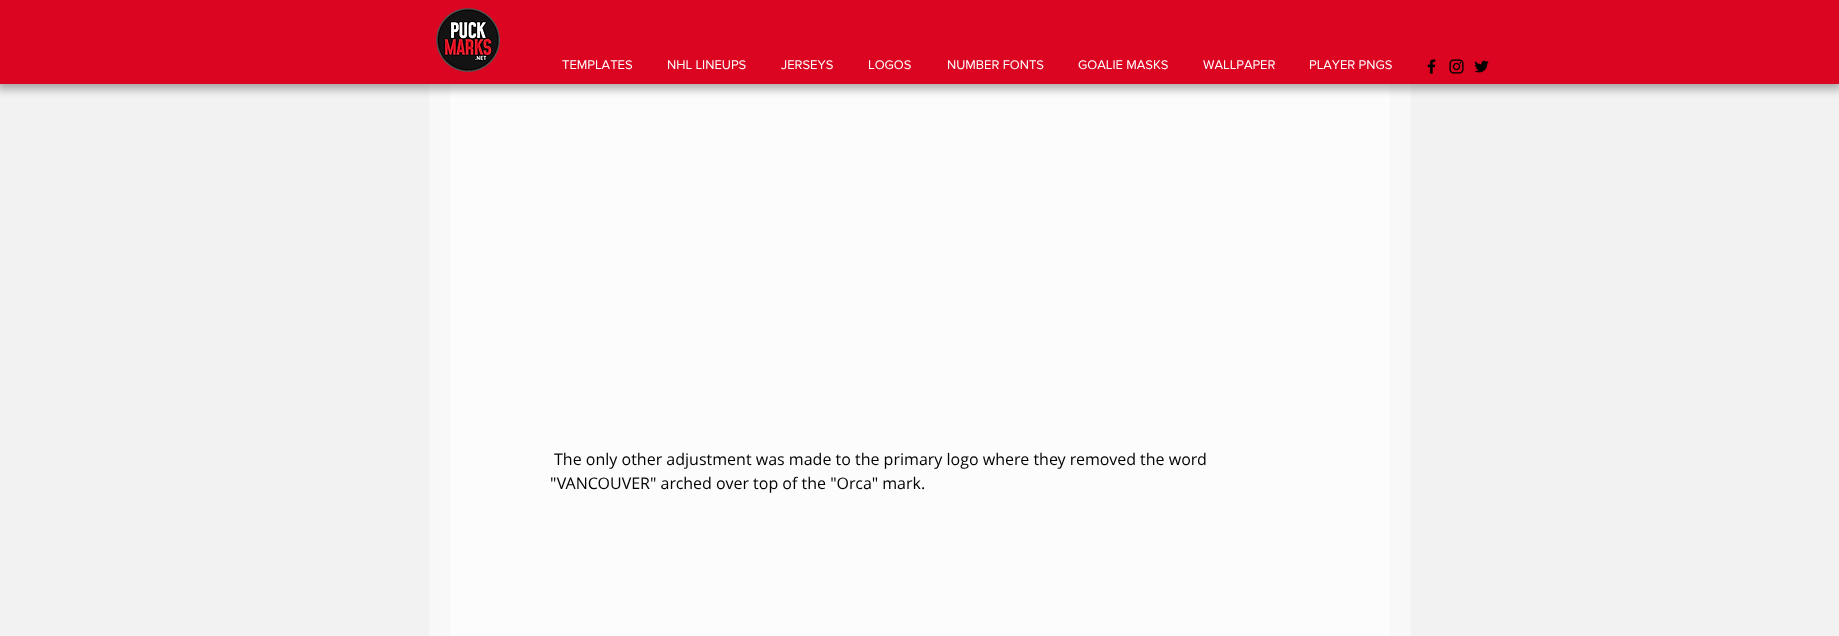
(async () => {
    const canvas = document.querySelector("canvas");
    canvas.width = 1839;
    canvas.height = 636;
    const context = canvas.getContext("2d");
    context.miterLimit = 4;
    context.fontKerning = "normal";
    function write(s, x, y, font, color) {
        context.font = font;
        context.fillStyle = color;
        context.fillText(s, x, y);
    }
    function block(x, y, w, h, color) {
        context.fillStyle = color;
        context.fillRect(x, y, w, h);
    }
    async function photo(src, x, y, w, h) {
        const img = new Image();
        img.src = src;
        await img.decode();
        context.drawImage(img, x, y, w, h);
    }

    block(0, 0, 1839, 636, "rgb(242, 242, 242)");
    block(429, 84, 982, 552, "rgb(248, 248, 248)");
    block(450, 84, 940, 552, "rgb(252, 252, 252)");
    context.fillStyle = "rgba(0, 0, 0, 0.32)";
    context.filter = "blur(5px)";
    context.beginPath();
    context.rect(-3, -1, 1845, 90);
    context.fill();
    context.filter = "none";
    block(0, 0, 1839, 84, "rgb(219, 4, 33)");
    await photo("media/1.png", 436, 8, 65, 64);
    write("TEMPLATES", 562, 69, "13px 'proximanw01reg'", "rgb(255, 255, 255)");
    write("NHL LINEUPS", 667, 69, "13px 'proximanw01reg'", "rgb(255, 255, 255)");
    write("JERSEYS", 781, 69, "13px 'proximanw01reg'", "rgb(255, 255, 255)");
    write("LOGOS", 868, 69, "13px 'proximanw01reg'", "rgb(255, 255, 255)");
    write("NUMBER FONTS", 947, 69, "13px 'proximanw01reg'", "rgb(255, 255, 255)");
    write("GOALIE MASKS", 1078, 69, "13px 'proximanw01reg'", "rgb(255, 255, 255)");
    write("WALLPAPER", 1203, 69, "13px 'proximanw01reg'", "rgb(255, 255, 255)");
    write("PLAYER PNGS", 1309, 69, "13px 'proximanw01reg'", "rgb(255, 255, 255)");
    await photo("media/2.png", 1427, 59, 9, 15);
    await photo("media/3.png", 1449, 59, 15, 15);
    await photo("media/4.png", 1474, 60, 15, 13);
    write("The only other adjustment was made to the primary logo where they removed the word", 554, 465, "16px Open Sans", "rgb(0, 0, 0)");
    write("\"VANCOUVER\" arched over top of the \"Orca\" mark.", 550, 489, "16px Open Sans", "rgb(0, 0, 0)");
})();
